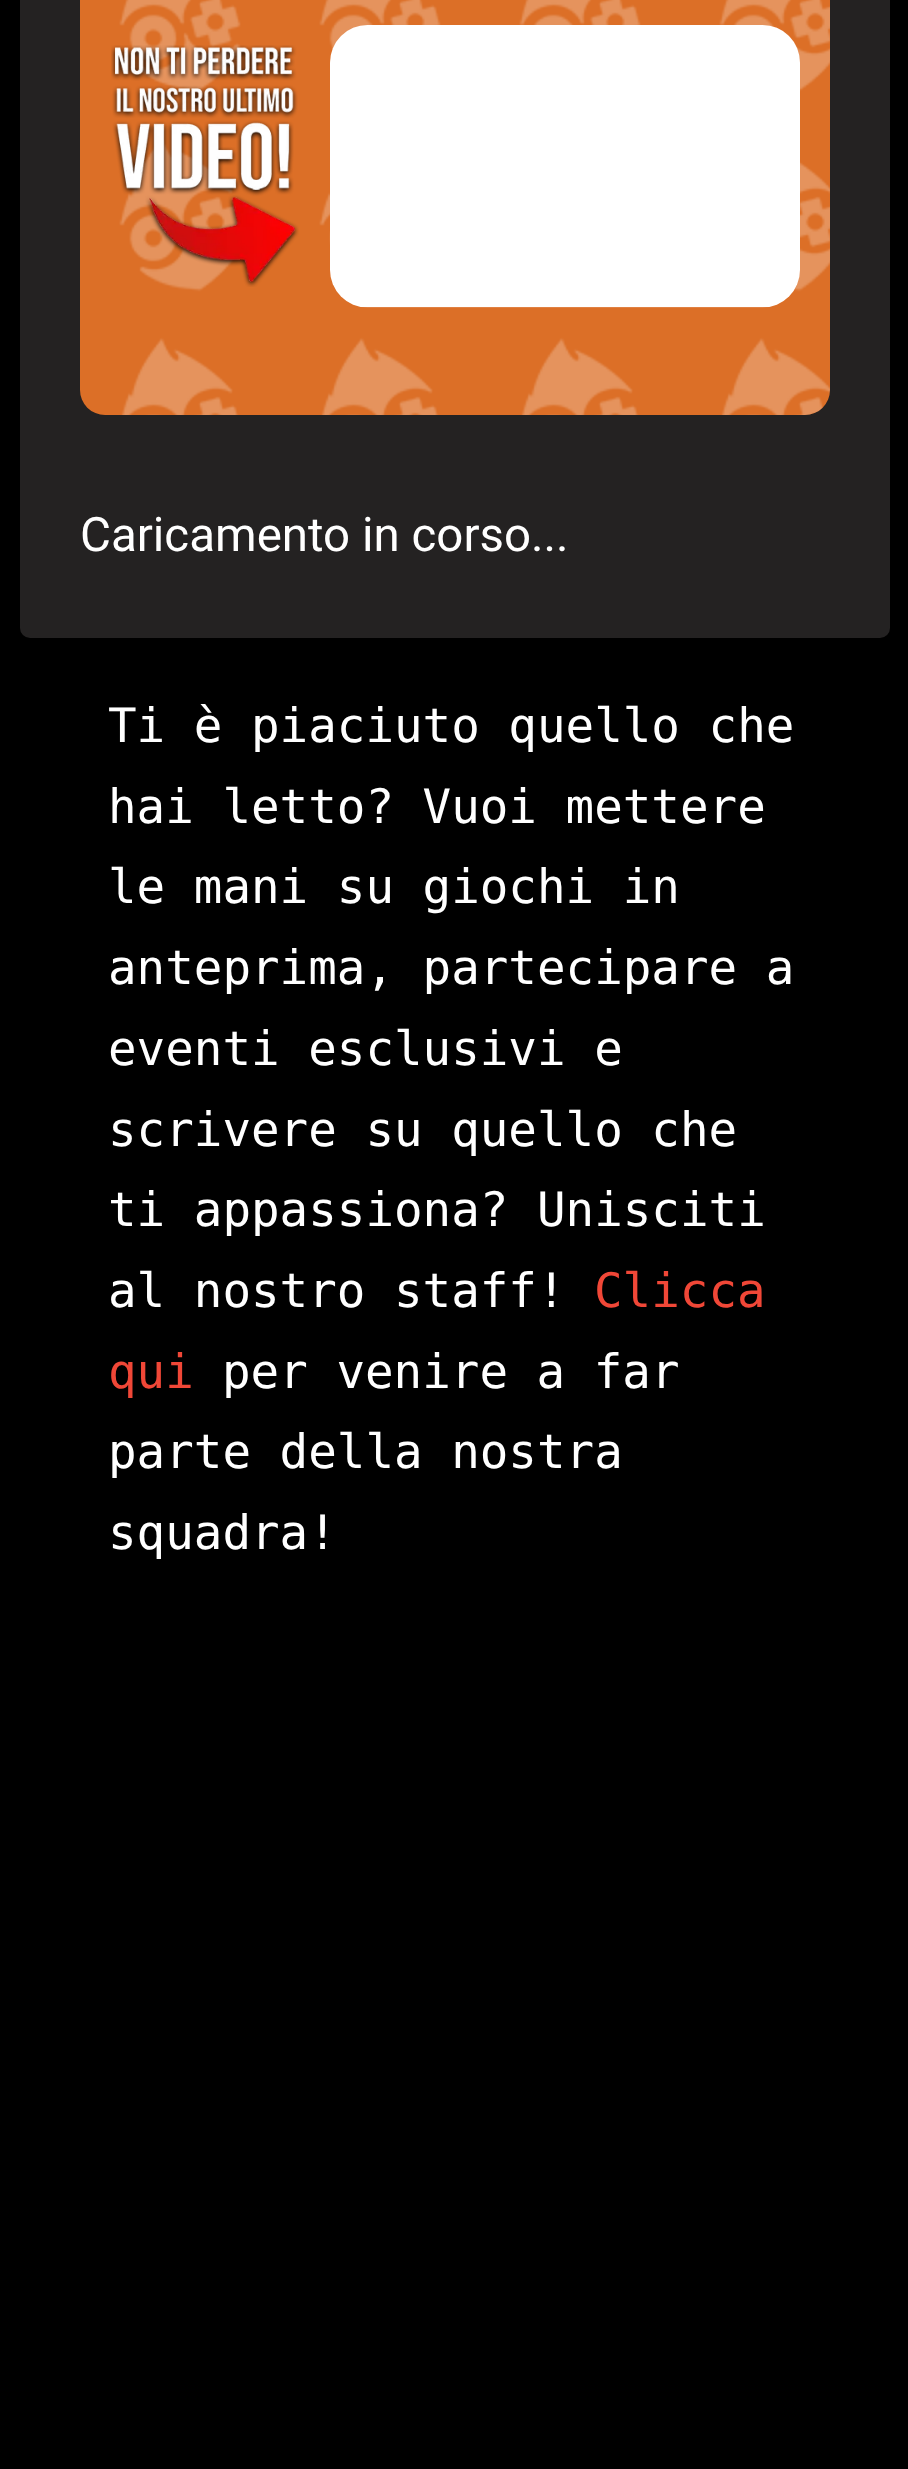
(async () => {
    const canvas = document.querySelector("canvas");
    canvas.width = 908;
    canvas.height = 2469;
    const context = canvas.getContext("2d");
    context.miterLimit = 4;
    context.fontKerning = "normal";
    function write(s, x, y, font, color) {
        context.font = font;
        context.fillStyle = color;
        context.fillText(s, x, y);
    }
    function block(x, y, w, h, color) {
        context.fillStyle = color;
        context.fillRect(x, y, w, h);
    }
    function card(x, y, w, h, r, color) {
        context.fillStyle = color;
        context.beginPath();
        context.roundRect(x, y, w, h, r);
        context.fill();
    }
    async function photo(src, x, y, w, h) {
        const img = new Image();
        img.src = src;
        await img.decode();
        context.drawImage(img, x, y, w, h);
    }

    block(0, 0, 908, 2469, "rgb(0, 0, 0)");
    card(20, -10, 870, 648, 10, "rgb(36, 34, 34)");
    card(80, -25, 750, 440, 25, "rgb(220, 111, 39)");
    await photo("media/1.png", 119, 0, 711, 415);
    await photo("media/2.png", 111, 45, 188, 242);
    await photo("media/3.png", 330, 25, 470, 283);
    write("Caricamento in corso...", 80, 551, "47.5px Roboto", "rgb(255, 255, 255)");
    write("Ti è piaciuto quello che", 108, 742, "47.5px DejaVu Sans Mono", "rgb(255, 255, 255)");
    write("hai letto? Vuoi mettere", 108, 823, "47.5px DejaVu Sans Mono", "rgb(255, 255, 255)");
    write("le mani su giochi in", 108, 903, "47.5px DejaVu Sans Mono", "rgb(255, 255, 255)");
    write("anteprima, partecipare a", 108, 984, "47.5px DejaVu Sans Mono", "rgb(255, 255, 255)");
    write("eventi esclusivi e", 108, 1065, "47.5px DejaVu Sans Mono", "rgb(255, 255, 255)");
    write("scrivere su quello che", 108, 1146, "47.5px DejaVu Sans Mono", "rgb(255, 255, 255)");
    write("ti appassiona? Unisciti", 108, 1226, "47.5px DejaVu Sans Mono", "rgb(255, 255, 255)");
    write("al nostro staff!", 108, 1307, "47.5px DejaVu Sans Mono", "rgb(255, 255, 255)");
    write("Clicca", 594, 1307, "47.5px DejaVu Sans Mono", "rgb(240, 71, 55)");
    write("qui", 108, 1388, "47.5px DejaVu Sans Mono", "rgb(240, 71, 55)");
    write("per venire a far", 222, 1388, "47.5px DejaVu Sans Mono", "rgb(255, 255, 255)");
    write("parte della nostra", 108, 1468, "47.5px DejaVu Sans Mono", "rgb(255, 255, 255)");
    write("squadra!", 108, 1549, "47.5px DejaVu Sans Mono", "rgb(255, 255, 255)");
})();
